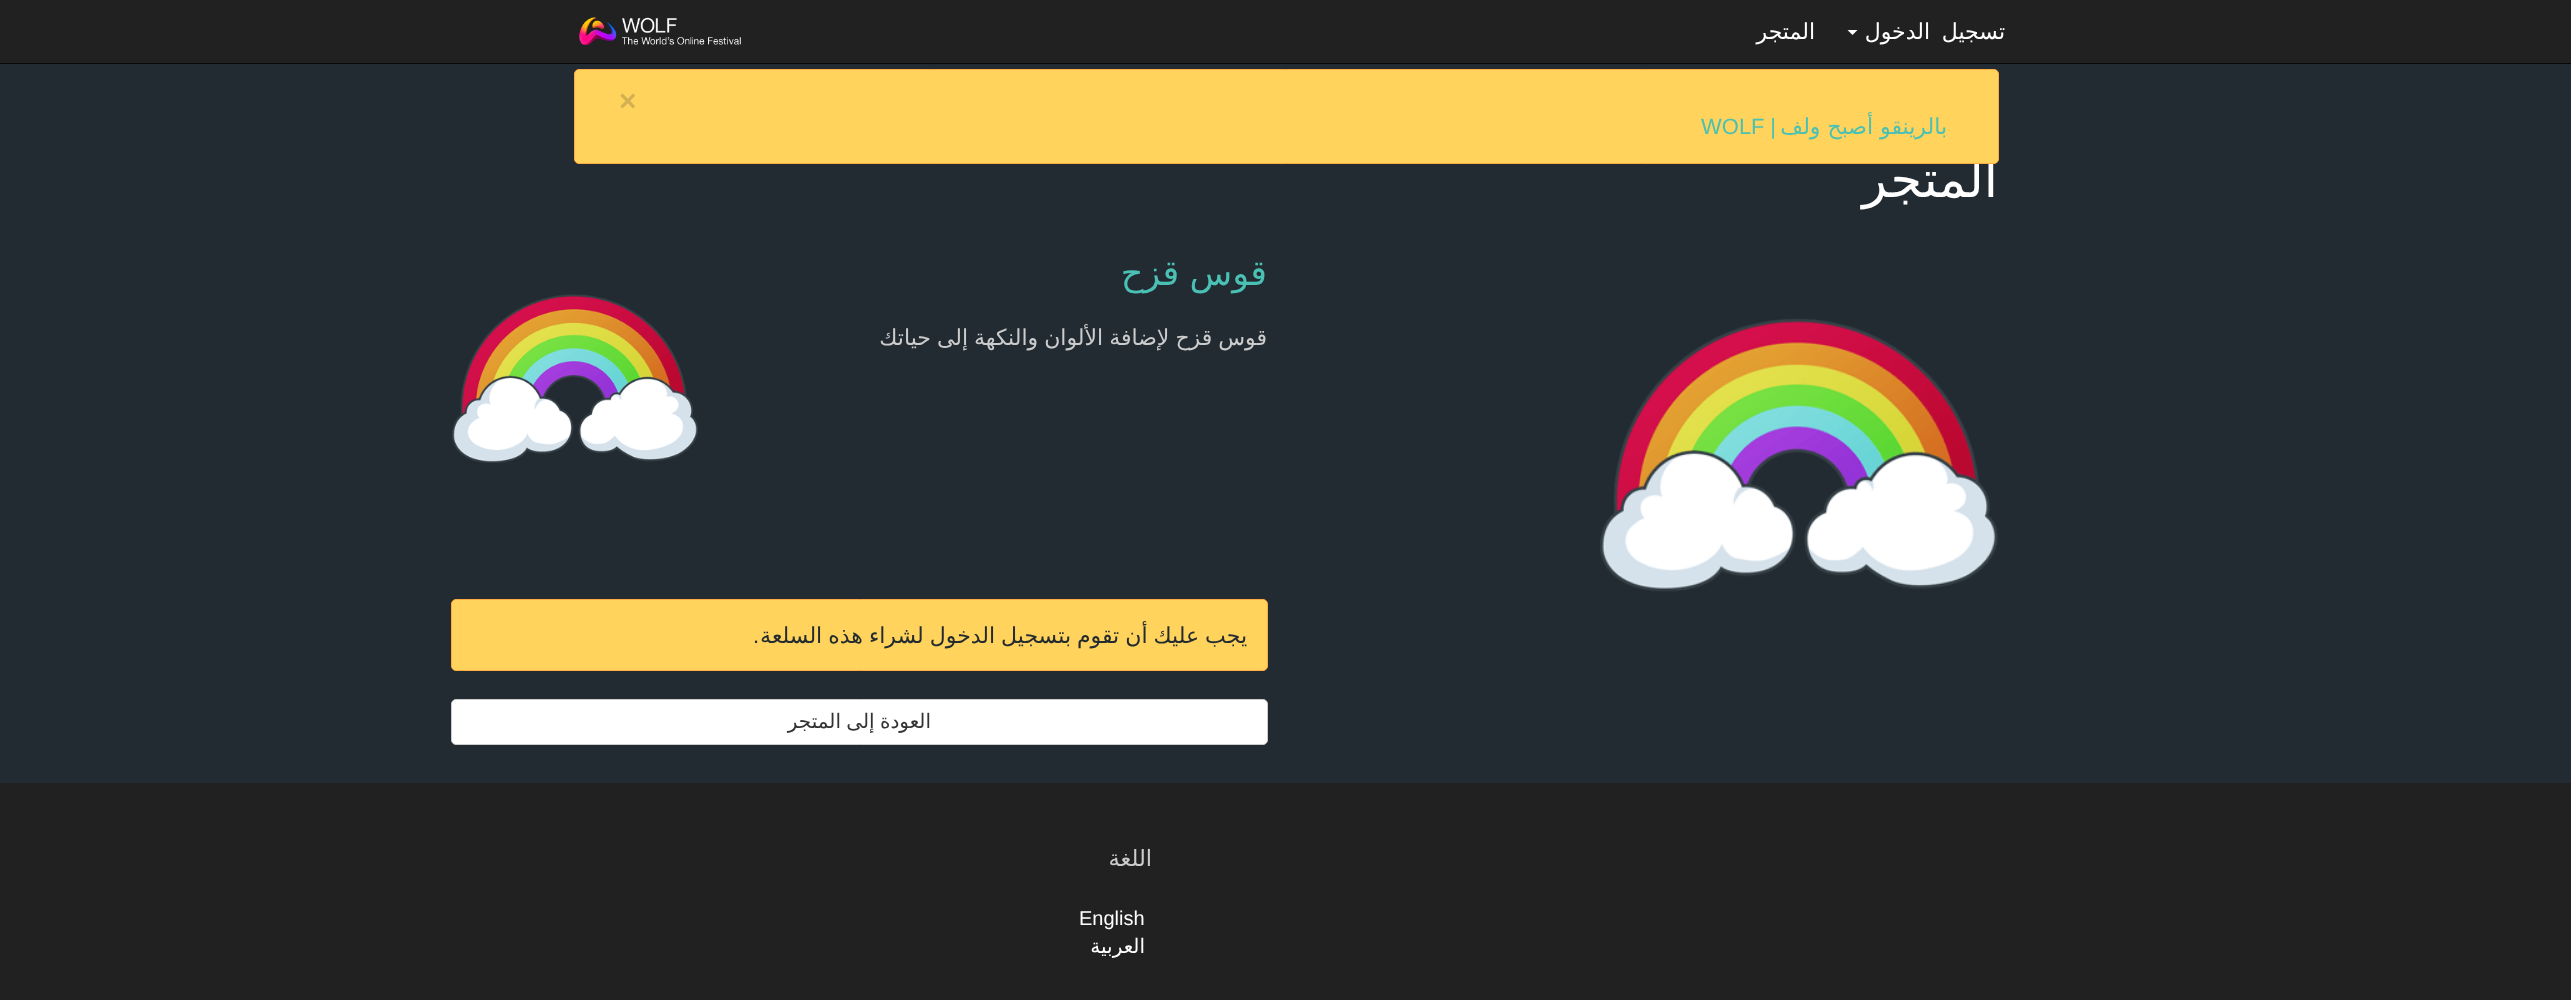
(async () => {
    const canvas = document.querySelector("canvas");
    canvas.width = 2571;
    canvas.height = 1000;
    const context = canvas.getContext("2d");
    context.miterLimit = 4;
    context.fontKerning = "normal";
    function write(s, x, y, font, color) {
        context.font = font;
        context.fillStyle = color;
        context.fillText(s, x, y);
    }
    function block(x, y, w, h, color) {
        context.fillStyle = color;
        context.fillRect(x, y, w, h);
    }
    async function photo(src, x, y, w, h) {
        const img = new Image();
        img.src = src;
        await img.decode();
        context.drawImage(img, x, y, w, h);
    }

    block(0, 0, 2571, 1000, "rgb(33, 33, 33)");
    block(0, 63, 2571, 1, "rgb(8, 8, 8)");
    context.letterSpacing = "1.25px";
    context.direction = "rtl";
    write("تسجيل", 2005, 39, "22px DejaVu Sans", "rgb(255, 255, 255)");
    write("الدخول", 1930, 39, "22px DejaVu Sans", "rgb(255, 255, 255)");
    context.beginPath();
    context.moveTo(1847.5, 30);
    context.lineTo(1857.5, 30);
    context.lineTo(1852.5, 35);
    context.closePath();
    context.fill();
    write("المتجر", 1815, 39, "22px DejaVu Sans", "rgb(255, 255, 255)");
    await photo("media/1.png", 579, 17, 162, 28);
    block(0, 64, 2571, 719, "rgb(34, 43, 50)");
    context.letterSpacing = "0px";
    write("المتجر", 1998, 197, "51px DejaVu Sans", "rgb(255, 255, 255)");
    context.fillStyle = "rgb(255, 211, 92)";
    context.beginPath();
    context.roundRect(574.5, 69.5, 1424, 94, 4.5);
    context.fill();
    context.strokeStyle = "rgb(255, 173, 66)";
    context.stroke();
    context.direction = "ltr";
    write("×", 619, 111, "bold 30px Liberation Sans", "rgb(211, 177, 83)");
    context.direction = "rtl";
    write("بالرينقو أصبح ولف", 1947, 134, "22px DejaVu Sans", "rgb(74, 193, 180)");
    write("|", 1776, 134, "22px Liberation Sans", "rgb(74, 193, 180)");
    context.direction = "ltr";
    write("WOLF", 1701, 134, "22px Liberation Sans", "rgb(74, 193, 180)");
    await photo("media/2.png", 1600, 318, 398, 274);
    context.wordSpacing = "-1px";
    context.direction = "rtl";
    write("قوس قزح", 1267, 285, "35px DejaVu Sans", "rgb(74, 193, 180)");
    write("قوس قزح لإضافة الألوان والنكهة إلى حياتك", 1267, 345, "22px DejaVu Sans", "rgb(204, 204, 204)");
    await photo("media/3.png", 452, 294, 246, 169);
    context.fillStyle = "rgb(255, 211, 92)";
    context.beginPath();
    context.roundRect(451.5, 599.5, 816, 71, 4.5);
    context.fill();
    context.stroke();
    write("يجب عليك أن تقوم بتسجيل الدخول لشراء هذه السلعة", 1247, 643, "22px DejaVu Sans", "rgb(34, 43, 48)");
    context.wordSpacing = "0px";
    write(".", 759, 643, "22px Liberation Sans", "rgb(34, 43, 48)");
    context.fillStyle = "rgb(255, 255, 255)";
    context.beginPath();
    context.roundRect(451.5, 699.5, 816, 45, 4.5);
    context.fill();
    context.strokeStyle = "rgb(204, 204, 204)";
    context.stroke();
    context.wordSpacing = "-1px";
    write("العودة إلى المتجر", 931, 728, "20px DejaVu Sans", "rgb(51, 51, 51)");
    context.letterSpacing = "1.5px";
    context.wordSpacing = "0px";
    write("اللغة", 1152, 866, "22.5px DejaVu Sans", "rgb(204, 204, 204)");
    context.letterSpacing = "0px";
    context.direction = "ltr";
    write("English", 1079, 925, "20px Liberation Sans", "rgb(255, 255, 255)");
    context.direction = "rtl";
    write("العربية", 1145, 953, "20px DejaVu Sans", "rgb(255, 255, 255)");
})();
